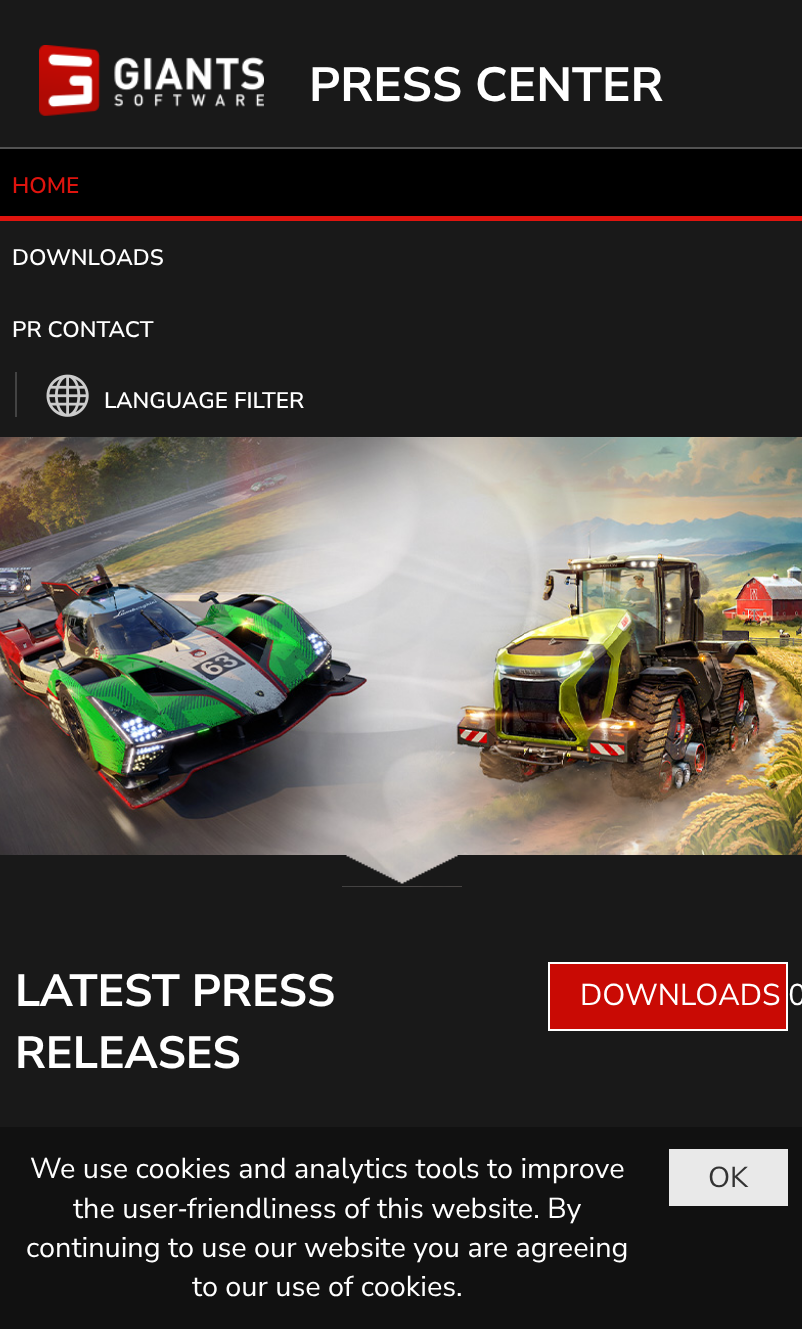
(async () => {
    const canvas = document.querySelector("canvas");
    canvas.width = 802;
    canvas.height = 1329;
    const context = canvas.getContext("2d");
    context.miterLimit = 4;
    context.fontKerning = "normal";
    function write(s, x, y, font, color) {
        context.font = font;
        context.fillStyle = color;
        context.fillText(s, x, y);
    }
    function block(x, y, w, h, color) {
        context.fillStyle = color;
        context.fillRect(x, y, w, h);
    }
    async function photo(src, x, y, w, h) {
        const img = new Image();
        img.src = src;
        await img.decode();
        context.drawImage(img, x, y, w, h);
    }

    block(0, 0, 802, 1329, "rgb(25, 25, 25)");
    await photo("media/1.png", 39, 45, 225, 71);
    write("PRESS CENTER", 309, 101, "bold 48px Nunito Sans", "rgb(255, 255, 255)");
    block(0, 147, 802, 2, "rgb(82, 82, 82)");
    block(0, 149, 802, 67, "rgb(0, 0, 0)");
    block(0, 216, 802, 5, "rgb(223, 20, 14)");
    write("HOME", 12, 193, "600 22.5px Nunito Sans", "rgb(223, 20, 14)");
    write("DOWNLOADS", 12, 265, "600 22.5px Nunito Sans", "rgb(255, 255, 255)");
    write("PR CONTACT", 12, 337, "600 22.5px Nunito Sans", "rgb(255, 255, 255)");
    block(15, 372, 2, 45, "rgb(67, 67, 67)");
    await photo("media/2.png", 46, 374, 43, 43);
    write("LANGUAGE FILTER", 104, 408, "600 22.5px Nunito Sans", "rgb(255, 255, 255)");
    await photo("media/3.png", 0, 437, 802, 450);
    await photo("media/4.png", 342, 855, 120, 32);
    block(0, 855, 342, 32, "rgb(25, 25, 25)");
    block(462, 855, 340, 32, "rgb(25, 25, 25)");
    write("LATEST PRESS", 15, 1006, "bold 45px Nunito Sans", "rgb(255, 255, 255)");
    write("RELEASES", 15, 1068, "bold 45px Nunito Sans", "rgb(255, 255, 255)");
    context.fillStyle = "rgb(201, 10, 4)";
    context.beginPath();
    context.rect(549, 963, 238, 67);
    context.fill();
    context.strokeStyle = "rgb(255, 255, 255)";
    context.lineWidth = 2;
    context.stroke();
    write("DOWNLOADS 0", 580, 1005, "30px Nunito Sans", "rgb(255, 255, 255)");
    block(0, 1127, 802, 202, "rgb(17, 17, 17)");
    write("We use cookies and analytics tools to improve", 30, 1178, "28.8px Nunito Sans", "rgb(255, 255, 255)");
    write("the user", 73, 1218, "28.8px Nunito Sans", "rgb(255, 255, 255)");
    write("‑", 178, 1218, "28.8px Open Sans", "rgb(255, 255, 255)");
    write("friendliness of this website. By", 187, 1218, "28.8px Nunito Sans", "rgb(255, 255, 255)");
    write("continuing to use our website you are agreeing", 26, 1257, "28.8px Nunito Sans", "rgb(255, 255, 255)");
    write("to our use of cookies.", 192, 1296, "28.8px Nunito Sans", "rgb(255, 255, 255)");
    block(669, 1149, 119, 57, "rgb(233, 233, 233)");
    write("OK", 708, 1187, "28.8px Nunito Sans", "rgb(51, 51, 51)");
})();
